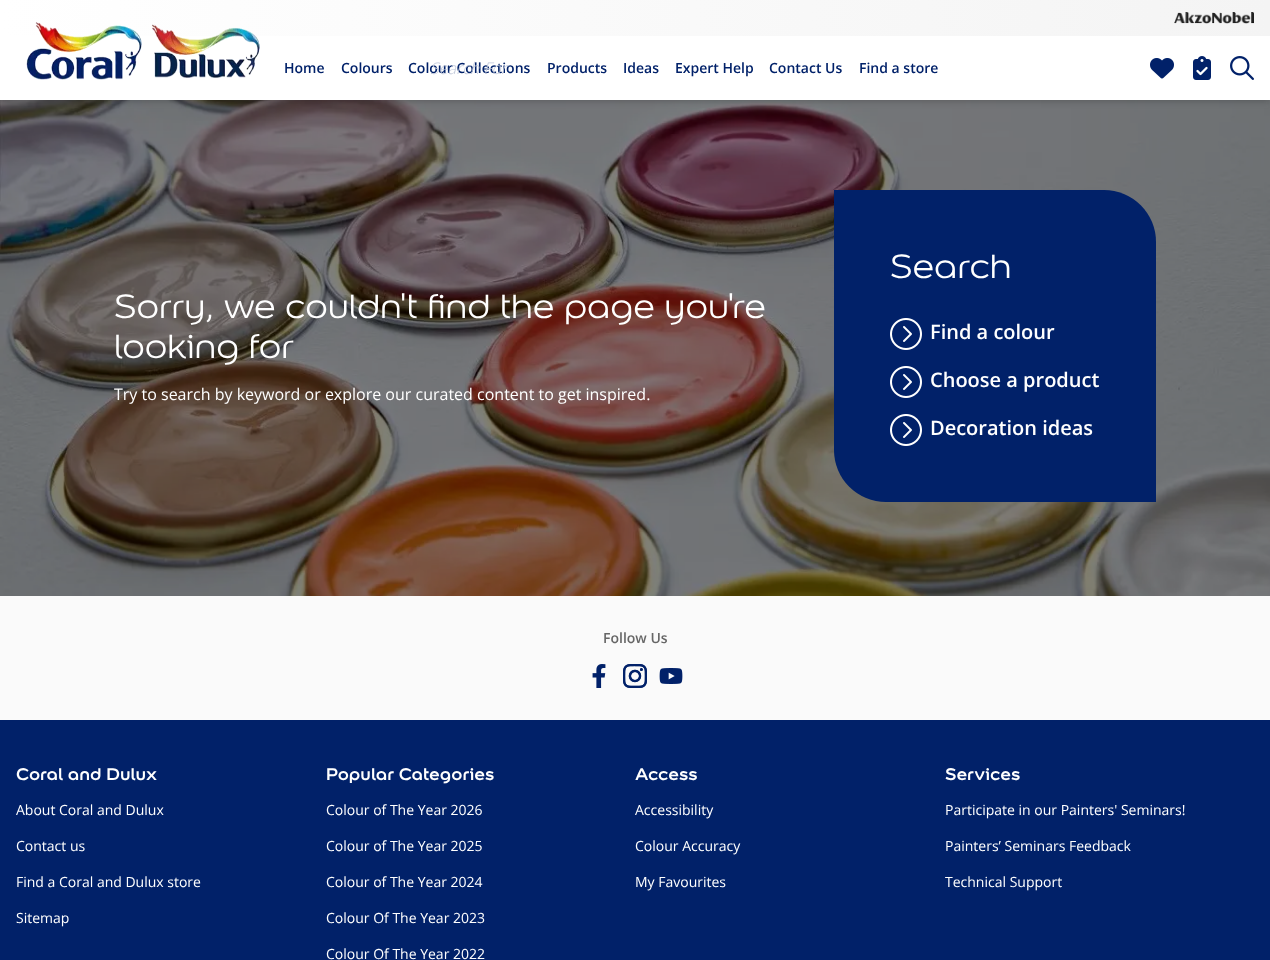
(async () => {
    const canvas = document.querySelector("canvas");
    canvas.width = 1270;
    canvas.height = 960;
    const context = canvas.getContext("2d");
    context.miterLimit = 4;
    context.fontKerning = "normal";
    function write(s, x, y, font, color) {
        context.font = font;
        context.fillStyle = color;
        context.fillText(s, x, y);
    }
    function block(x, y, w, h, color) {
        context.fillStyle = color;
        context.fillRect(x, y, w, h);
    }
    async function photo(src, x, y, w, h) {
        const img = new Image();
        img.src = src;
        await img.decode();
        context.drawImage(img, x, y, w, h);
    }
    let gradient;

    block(0, 0, 1270, 960, "rgb(250, 250, 250)");
    block(0, 100, 1270, 496, "rgb(0, 0, 0)");
    await photo("media/6.png", 0, 100, 1270, 496);
    context.fillStyle = "rgba(0, 0, 0, 0.1)";
    context.filter = "blur(2px)";
    context.beginPath();
    context.rect(2, 4, 1266, 96);
    context.fill();
    context.filter = "none";
    context.filter = "blur(3px)";
    context.beginPath();
    context.rect(1, 5, 1268, 98);
    context.fill();
    context.filter = "none";
    gradient = context.createLinearGradient(0, 18, 1270, 18);
    gradient.addColorStop(0, "rgb(255, 255, 255)");
    gradient.addColorStop(1, "rgb(244, 244, 244)");
    context.fillStyle = gradient;
    context.fillRect(0, 0, 1270, 36);
    block(0, 36, 1270, 64, "rgb(255, 255, 255)");
    write("Colour Collections", 408, 73, "600 14px Open Sans", "rgb(1, 33, 105)");
    write("Search For", 430, 74, "italic 300 16px Open Sans", "rgb(192, 200, 218)");
    await photo("media/1.png", 26, 22, 234, 58);
    await photo("media/2.png", 1174, 12, 80, 12);
    write("Home", 284, 73, "600 14px Open Sans", "rgb(1, 33, 105)");
    write("Colours", 341, 73, "600 14px Open Sans", "rgb(1, 33, 105)");
    write("Products", 547, 73, "600 14px Open Sans", "rgb(1, 33, 105)");
    write("Ideas", 623, 73, "600 14px Open Sans", "rgb(1, 33, 105)");
    write("Expert Help", 675, 73, "600 14px Open Sans", "rgb(1, 33, 105)");
    write("Contact Us", 769, 73, "600 14px Open Sans", "rgb(1, 33, 105)");
    write("Find a store", 859, 73, "600 14px Open Sans", "rgb(1, 33, 105)");
    await photo("media/3.png", 1150, 58, 24, 21);
    await photo("media/4.png", 1193, 56, 18, 24);
    await photo("media/5.png", 1230, 56, 24, 24);
    write("Sorry, we couldn't find the page you're", 114, 318, "36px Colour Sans", "rgb(255, 255, 255)");
    write("looking for", 114, 358, "36px Colour Sans", "rgb(255, 255, 255)");
    write("Try to search by keyword or explore our curated content to get inspired.", 114, 400, "16px Open Sans", "rgb(255, 255, 255)");
    context.fillStyle = "rgb(1, 33, 105)";
    context.beginPath();
    context.roundRect(834, 190, 322, 312, [0, 52, 0, 52]);
    context.fill();
    write("Search", 890, 278, "36px Colour Sans", "rgb(255, 255, 255)");
    await photo("media/7.png", 890, 318, 32, 32);
    write("Find a colour", 930, 339, "600 20px Open Sans", "rgb(255, 255, 255)");
    await photo("media/7.png", 890, 366, 32, 32);
    write("Choose a product", 930, 387, "600 20px Open Sans", "rgb(255, 255, 255)");
    await photo("media/7.png", 890, 414, 32, 32);
    write("Decoration ideas", 930, 435, "600 20px Open Sans", "rgb(255, 255, 255)");
    write("Follow Us", 603, 643, "600 14px Open Sans", "rgb(102, 102, 102)");
    await photo("media/8.png", 592, 664, 14, 24);
    await photo("media/9.png", 623, 664, 24, 24);
    await photo("media/10.png", 659, 668, 24, 16);
    block(0, 720, 1270, 240, "rgb(1, 33, 105)");
    write("Coral and Dulux", 16, 780, "bold 18px Colour Sans", "rgb(255, 255, 255)");
    write("About Coral and Dulux", 16, 815, "14px Open Sans", "rgb(255, 255, 255)");
    write("Contact us", 16, 851, "14px Open Sans", "rgb(255, 255, 255)");
    write("Find a Coral and Dulux store", 16, 887, "14px Open Sans", "rgb(255, 255, 255)");
    write("Sitemap", 16, 923, "14px Open Sans", "rgb(255, 255, 255)");
    write("Popular Categories", 326, 780, "bold 18px Colour Sans", "rgb(255, 255, 255)");
    write("Colour of The Year 2026", 326, 815, "14px Open Sans", "rgb(255, 255, 255)");
    write("Colour of The Year 2025", 326, 851, "14px Open Sans", "rgb(255, 255, 255)");
    write("Colour of The Year 2024", 326, 887, "14px Open Sans", "rgb(255, 255, 255)");
    write("Colour Of The Year 2023", 326, 923, "14px Open Sans", "rgb(255, 255, 255)");
    write("Colour Of The Year 2022", 326, 959, "14px Open Sans", "rgb(255, 255, 255)");
    write("Access", 635, 780, "bold 18px Colour Sans", "rgb(255, 255, 255)");
    write("Accessibility", 635, 815, "14px Open Sans", "rgb(255, 255, 255)");
    write("Colour Accuracy", 635, 851, "14px Open Sans", "rgb(255, 255, 255)");
    write("My Favourites", 635, 887, "14px Open Sans", "rgb(255, 255, 255)");
    write("Services", 945, 780, "bold 18px Colour Sans", "rgb(255, 255, 255)");
    write("Participate in our Painters' Seminars!", 945, 815, "14px Open Sans", "rgb(255, 255, 255)");
    write("Painters’ Seminars Feedback", 945, 851, "14px Open Sans", "rgb(255, 255, 255)");
    write("Technical Support", 945, 887, "14px Open Sans", "rgb(255, 255, 255)");
})();
